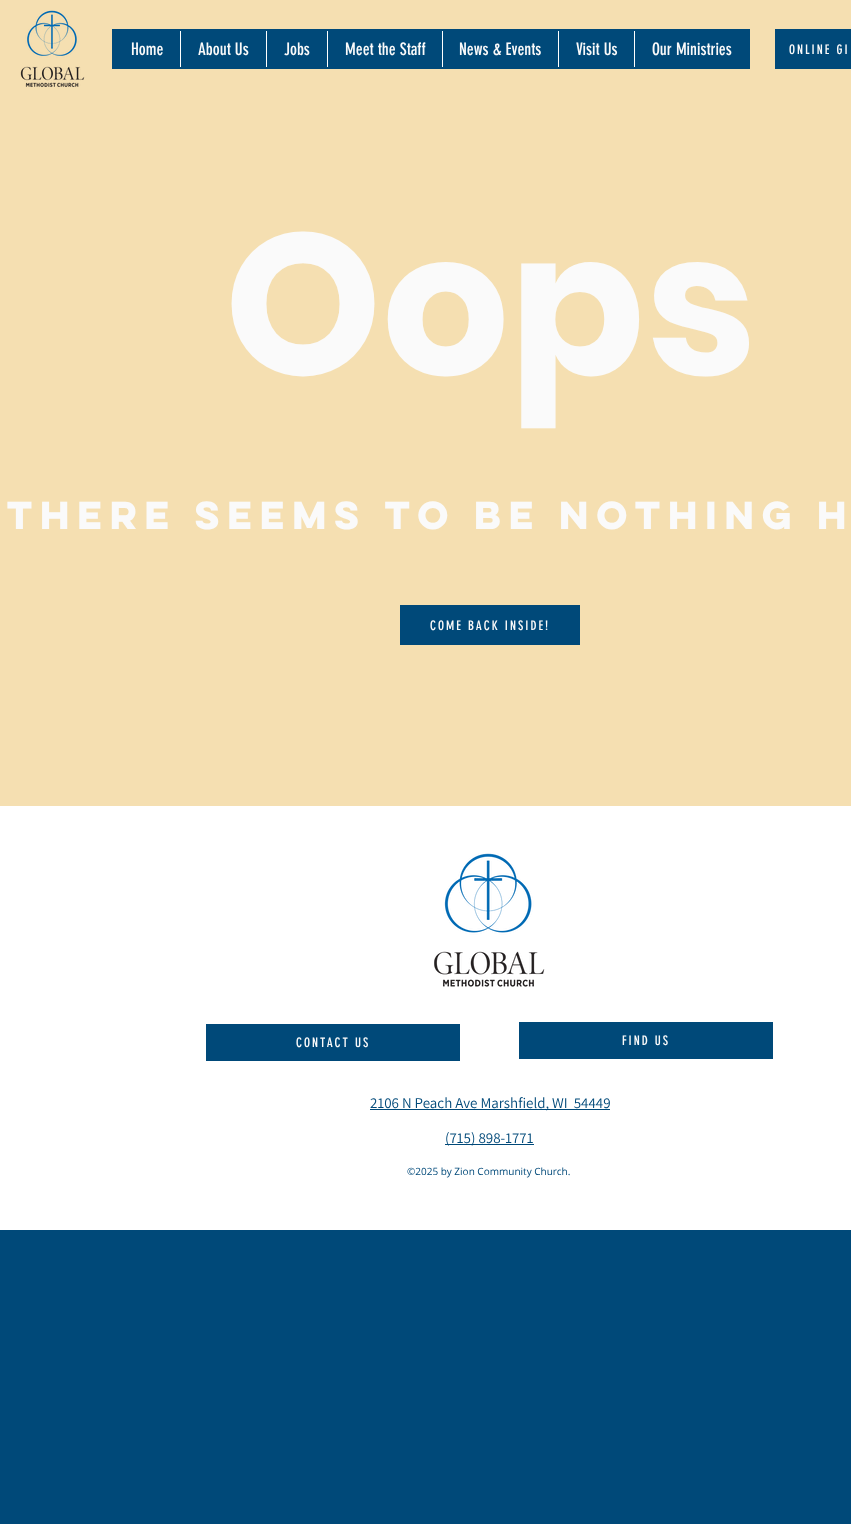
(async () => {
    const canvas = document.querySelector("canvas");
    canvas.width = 851;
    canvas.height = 1524;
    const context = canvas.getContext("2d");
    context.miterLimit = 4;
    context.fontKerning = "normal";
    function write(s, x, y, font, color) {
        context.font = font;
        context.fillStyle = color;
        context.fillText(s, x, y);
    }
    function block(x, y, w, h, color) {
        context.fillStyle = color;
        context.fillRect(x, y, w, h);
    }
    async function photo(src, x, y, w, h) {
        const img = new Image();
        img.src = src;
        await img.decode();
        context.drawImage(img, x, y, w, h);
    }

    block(0, 0, 851, 1524, "rgb(0, 73, 121)");
    block(0, 0, 851, 806, "rgb(245, 223, 177)");
    await photo("media/1.png", 20, 10, 65, 77);
    block(112, 29, 638, 40, "rgb(0, 73, 121)");
    write("Home", 131, 55, "17px 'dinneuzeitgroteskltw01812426'", "rgb(250, 250, 250)");
    block(180, 31, 1, 36, "rgb(255, 255, 255)");
    write("About Us", 198, 55, "17px 'dinneuzeitgroteskltw01812426'", "rgb(250, 250, 250)");
    block(266, 31, 1, 36, "rgb(255, 255, 255)");
    write("Jobs", 284, 55, "17px 'dinneuzeitgroteskltw01812426'", "rgb(250, 250, 250)");
    block(327, 31, 1, 36, "rgb(255, 255, 255)");
    write("Meet the Staff", 345, 55, "17px 'dinneuzeitgroteskltw01812426'", "rgb(250, 250, 250)");
    block(442, 31, 1, 36, "rgb(255, 255, 255)");
    write("News & Events", 459, 55, "17px 'dinneuzeitgroteskltw01812426'", "rgb(250, 250, 250)");
    block(558, 31, 1, 36, "rgb(255, 255, 255)");
    write("Visit Us", 576, 55, "17px 'dinneuzeitgroteskltw01812426'", "rgb(250, 250, 250)");
    block(634, 31, 1, 36, "rgb(255, 255, 255)");
    write("Our Ministries", 652, 55, "17px 'dinneuzeitgroteskltw01812426'", "rgb(250, 250, 250)");
    block(775, 29, 76, 40, "rgb(0, 73, 121)");
    context.letterSpacing = "2px";
    write("ONLINE GI", 789, 54, "13px 'dinneuzeitgroteskltw01812426'", "rgb(250, 250, 250)");
    context.letterSpacing = "0px";
    write("Oops", 224, 375, "bold 200px Poppins", "rgb(250, 250, 250)");
    write("There seems to be nothing h", 7, 529, "bold 35px 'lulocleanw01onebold'", "rgb(250, 250, 250)");
    block(400, 605, 180, 40, "rgb(0, 73, 121)");
    context.letterSpacing = "2px";
    write("COME BACK INSIDE!", 430, 630, "13px 'dinneuzeitgroteskltw01812426'", "rgb(250, 250, 250)");
    block(0, 806, 851, 424, "rgb(255, 255, 255)");
    await photo("media/2.png", 434, 853, 111, 134);
    block(206, 1024, 254, 37, "rgb(0, 73, 121)");
    write("CONTACT US", 296, 1047, "13px 'dinneuzeitgroteskltw01812426'", "rgb(250, 250, 250)");
    block(519, 1022, 254, 37, "rgb(0, 73, 121)");
    write("FIND US", 622, 1045, "13px 'dinneuzeitgroteskltw01812426'", "rgb(250, 250, 250)");
    block(370, 1109, 240, 1, "rgb(0, 73, 121)");
    context.letterSpacing = "0px";
    write("2106 N Peach Ave Marshfield, WI  54449", 370, 1108, "15px Assistant", "rgb(0, 73, 121)");
    block(445, 1144, 89, 1, "rgb(0, 73, 121)");
    write("(715) 898-1771", 445, 1143, "15px Assistant", "rgb(0, 73, 121)");
    write("©2025 by Zion Community Church.", 407, 1175, "10px Open Sans", "rgb(0, 73, 121)");
})();
